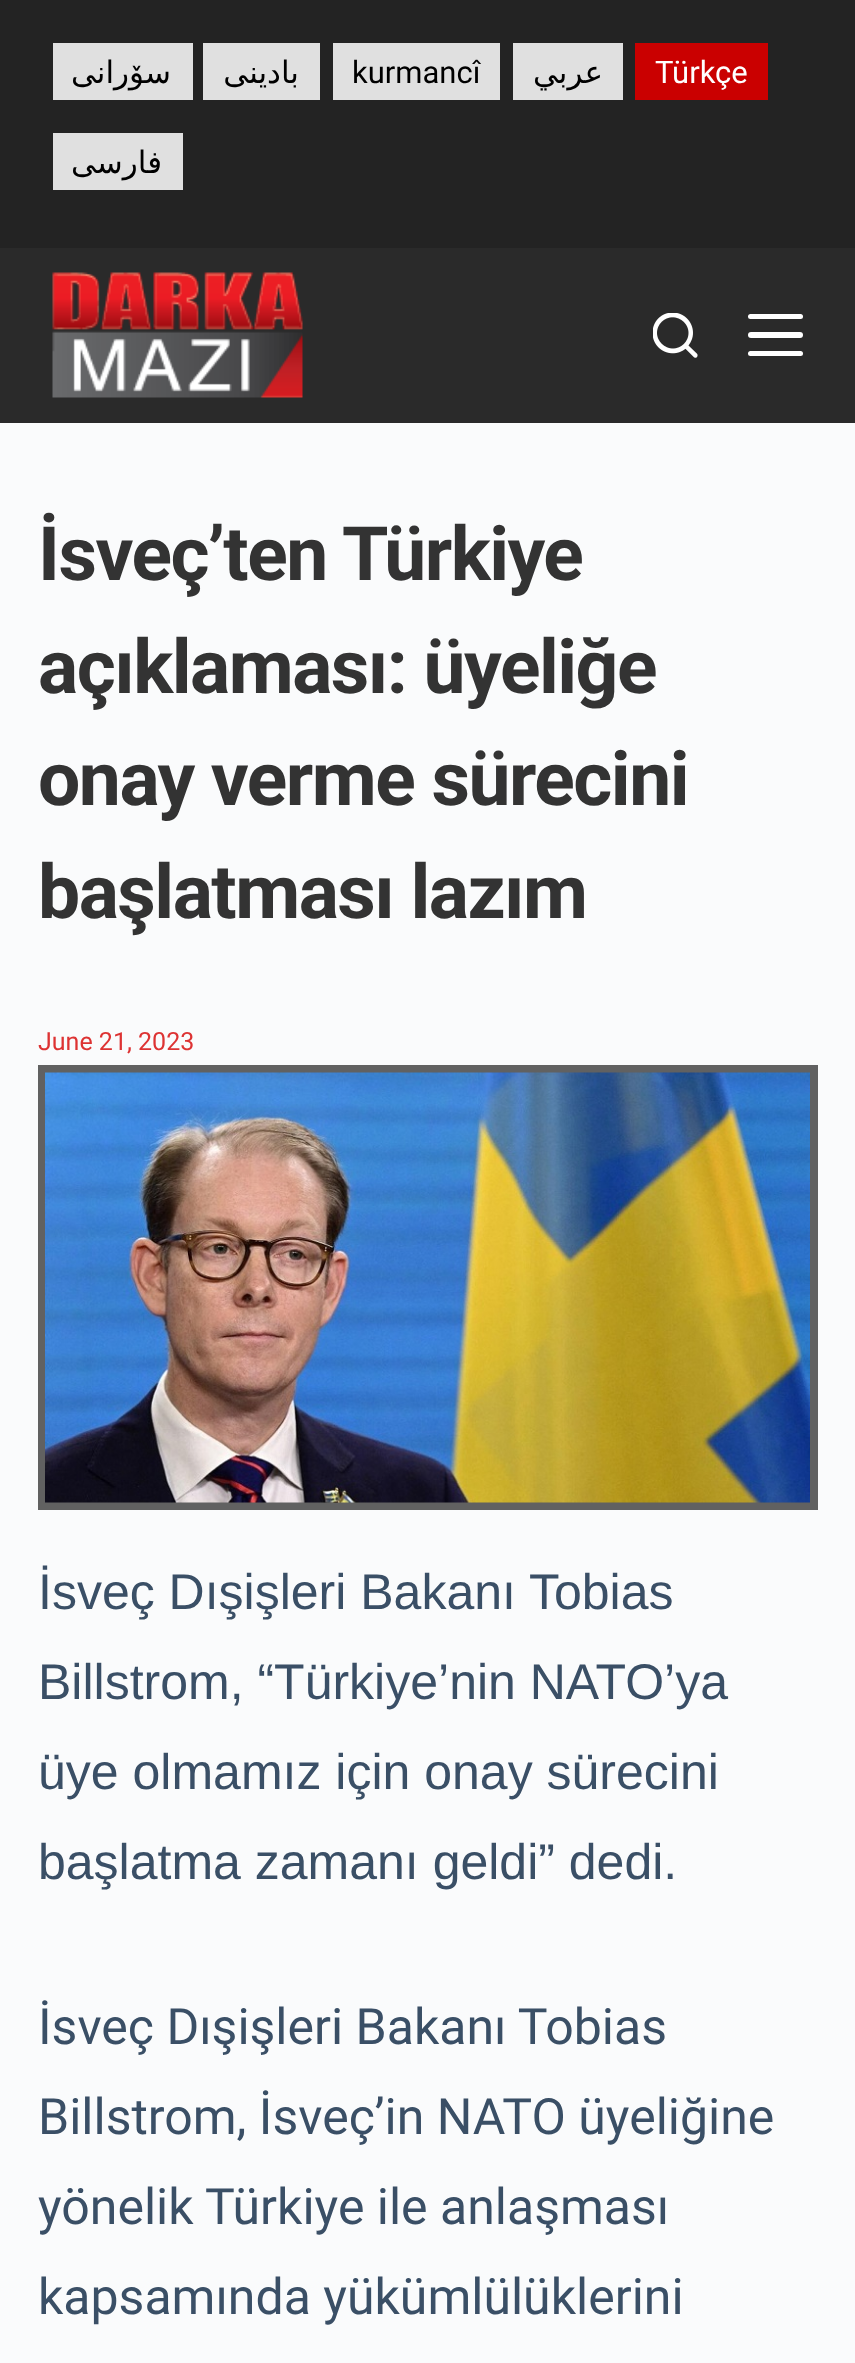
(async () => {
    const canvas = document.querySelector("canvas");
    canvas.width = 855;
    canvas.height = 2363;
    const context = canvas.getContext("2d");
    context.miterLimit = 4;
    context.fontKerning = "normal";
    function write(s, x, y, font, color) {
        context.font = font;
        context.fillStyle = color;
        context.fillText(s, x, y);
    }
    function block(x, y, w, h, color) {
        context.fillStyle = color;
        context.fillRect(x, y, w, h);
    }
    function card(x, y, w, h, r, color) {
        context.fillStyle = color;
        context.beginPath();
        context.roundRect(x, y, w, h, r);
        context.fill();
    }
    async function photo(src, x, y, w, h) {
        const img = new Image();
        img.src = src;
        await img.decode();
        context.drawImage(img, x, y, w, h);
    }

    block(0, 0, 855, 2363, "rgb(250, 251, 252)");
    block(0, 0, 855, 248, "rgb(35, 35, 35)");
    block(53, 43, 140, 57, "rgb(224, 224, 224)");
    context.direction = "rtl";
    write("سۆرانی", 171, 83, "31px DejaVu Sans", "rgb(0, 0, 0)");
    block(203, 43, 117, 57, "rgb(224, 224, 224)");
    write("بادینی", 299, 83, "31px DejaVu Sans", "rgb(0, 0, 0)");
    block(333, 43, 167, 57, "rgb(224, 224, 224)");
    context.direction = "ltr";
    write("kurmancî", 352, 83, "31px Roboto", "rgb(0, 0, 0)");
    block(513, 43, 110, 57, "rgb(224, 224, 224)");
    context.direction = "rtl";
    write("عربي", 603, 83, "31px DejaVu Sans", "rgb(0, 0, 0)");
    block(635, 43, 133, 57, "rgb(202, 0, 0)");
    context.direction = "ltr";
    write("Türkçe", 655, 83, "31px Roboto", "rgb(255, 255, 255)");
    block(53, 133, 130, 57, "rgb(224, 224, 224)");
    context.direction = "rtl";
    write("فارسی", 162, 173, "31px DejaVu Sans", "rgb(0, 0, 0)");
    block(0, 248, 855, 175, "rgb(42, 42, 42)");
    await photo("media/1.png", 52, 272, 251, 126);
    await photo("media/2.png", 653, 313, 45, 45);
    card(748, 314, 55, 5, 2.5, "rgb(255, 255, 255)");
    card(748, 332, 55, 6, 3, "rgb(255, 255, 255)");
    card(748, 351, 55, 5, 2.5, "rgb(255, 255, 255)");
    context.letterSpacing = "-1.5px";
    context.direction = "ltr";
    write("İsveç’ten Türkiye", 38, 580, "bold 75px Roboto", "rgb(51, 51, 51)");
    write("açıklaması: üyeliğe", 38, 693, "bold 75px Roboto", "rgb(51, 51, 51)");
    write("onay verme sürecini", 38, 805, "bold 75px Roboto", "rgb(51, 51, 51)");
    write("başlatması lazım", 38, 918, "bold 75px Roboto", "rgb(51, 51, 51)");
    context.letterSpacing = "0px";
    write("June 21, 2023", 38, 1050, "25px Roboto", "rgb(221, 51, 51)");
    context.strokeStyle = "rgb(97, 97, 97)";
    context.lineWidth = 8;
    context.strokeRect(42, 1069, 772, 437);
    await photo("media/3.png", 45, 1072, 765, 431);
    write("İsveç Dışişleri Bakanı Tobias", 38, 1609, "50px Liberation Sans", "rgb(58, 79, 102)");
    write("Billstrom, “Türkiye’nin NATO’ya", 38, 1699, "50px Liberation Sans", "rgb(58, 79, 102)");
    write("üye olmamız için onay sürecini", 38, 1789, "50px Liberation Sans", "rgb(58, 79, 102)");
    write("başlatma zamanı geldi” dedi.", 38, 1879, "50px Liberation Sans", "rgb(58, 79, 102)");
    write("İsveç Dışişleri Bakanı Tobias", 38, 2044, "50px Roboto", "rgb(58, 79, 102)");
    write("Billstrom, İsveç’in NATO üyeliğine", 38, 2134, "50px Roboto", "rgb(58, 79, 102)");
    write("yönelik Türkiye ile anlaşması", 38, 2224, "50px Roboto", "rgb(58, 79, 102)");
    write("kapsamında yükümlülüklerini", 38, 2314, "50px Roboto", "rgb(58, 79, 102)");
})();
